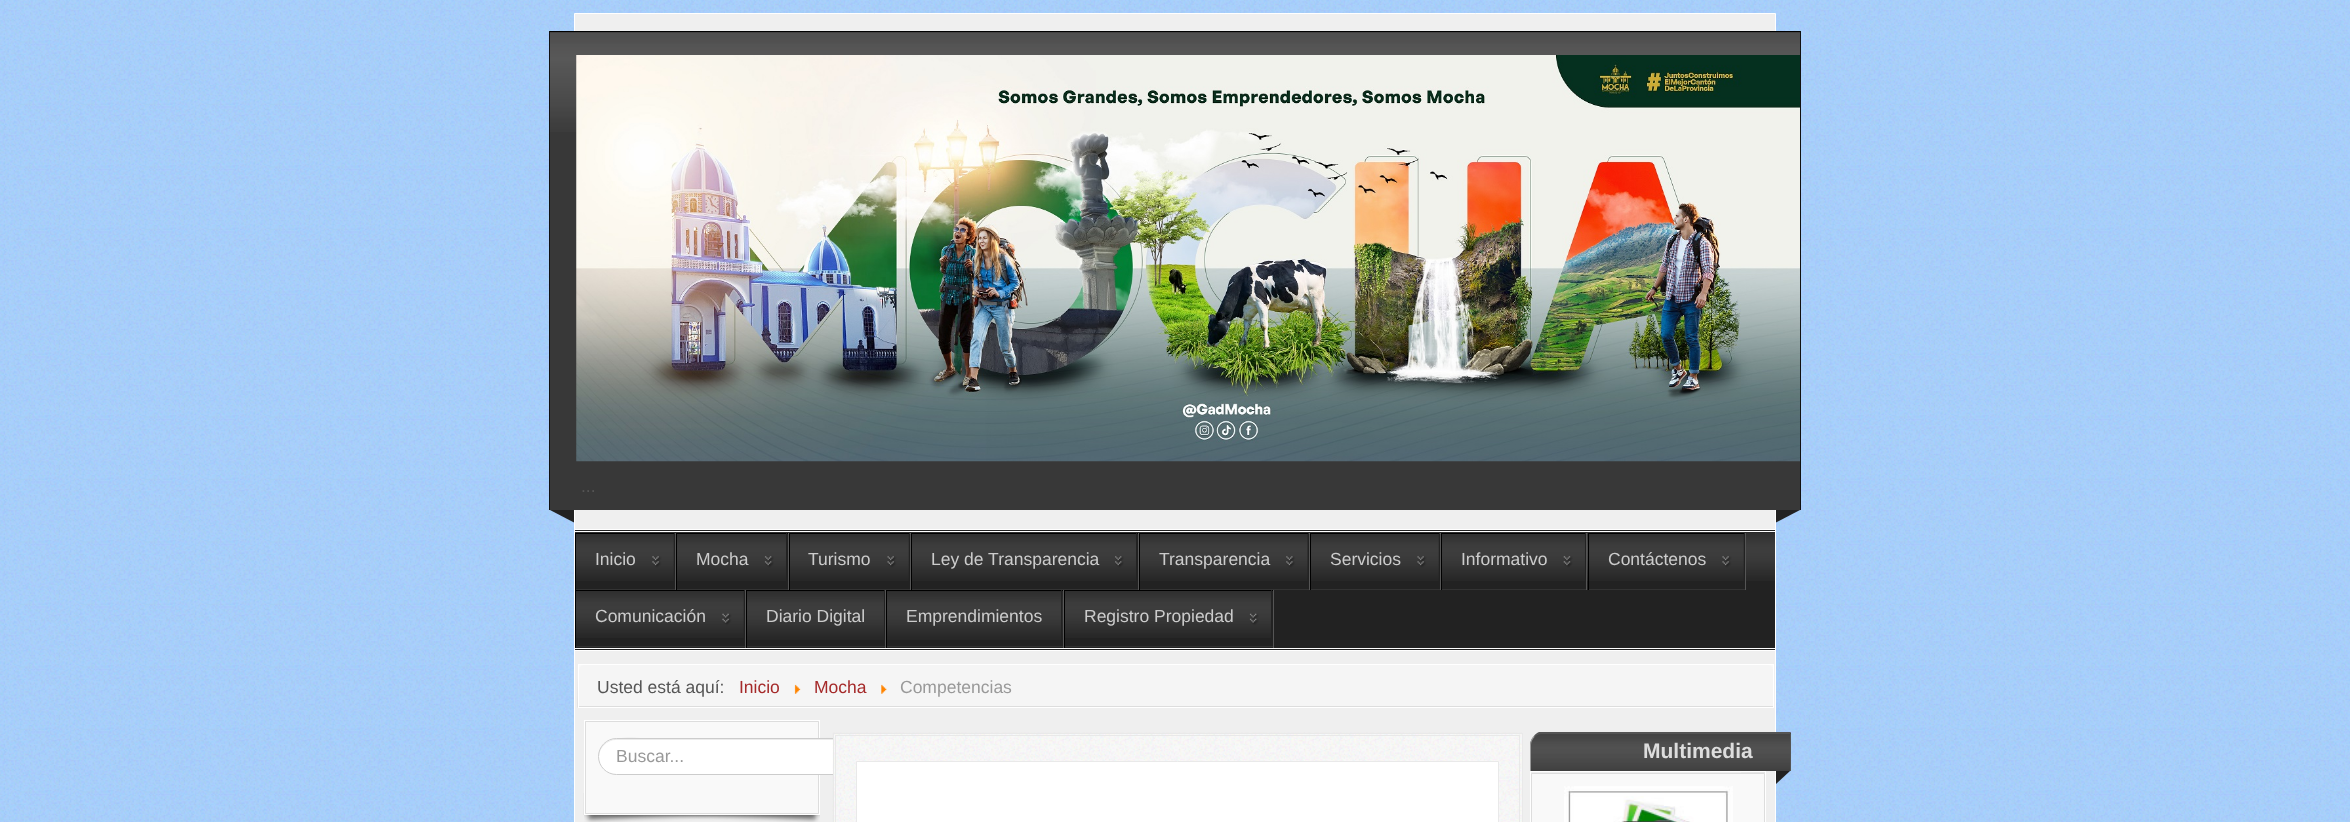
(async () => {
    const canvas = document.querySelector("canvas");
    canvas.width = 2350;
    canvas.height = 822;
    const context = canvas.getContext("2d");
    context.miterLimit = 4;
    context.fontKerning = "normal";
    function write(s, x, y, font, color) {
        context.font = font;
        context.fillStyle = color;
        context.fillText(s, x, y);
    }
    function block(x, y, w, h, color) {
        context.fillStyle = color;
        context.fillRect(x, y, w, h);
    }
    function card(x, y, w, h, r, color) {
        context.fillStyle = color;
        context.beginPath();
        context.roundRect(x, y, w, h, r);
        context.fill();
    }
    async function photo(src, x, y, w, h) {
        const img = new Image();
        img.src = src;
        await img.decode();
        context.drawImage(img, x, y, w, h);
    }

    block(0, 0, 2350, 822, "rgb(162, 205, 253)");
    await photo("media/1.png", 0, 0, 2350, 822);
    context.fillStyle = "rgb(239, 239, 239)";
    context.beginPath();
    context.rect(574.5, 13.5, 1201, 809);
    context.fill();
    context.strokeStyle = "rgb(255, 255, 255)";
    context.stroke();
    block(550, 32, 1250, 478, "rgb(56, 56, 56)");
    await photo("media/2.png", 550, 32, 1250, 100);
    block(549, 31, 1252, 1, "rgb(0, 0, 0)");
    block(1800, 31, 1, 479, "rgb(17, 17, 17)");
    block(549, 31, 1, 479, "rgb(17, 17, 17)");
    await photo("media/3.png", 576, 55, 1224, 407);
    write("...", 581, 492, "17.5px Liberation Sans", "rgb(85, 85, 85)");
    context.fillStyle = "rgb(34, 34, 34)";
    context.beginPath();
    context.moveTo(550, 510);
    context.lineTo(574, 510);
    context.lineTo(574, 522.5);
    context.closePath();
    context.fill();
    context.beginPath();
    context.moveTo(1776, 510);
    context.lineTo(1800, 510);
    context.lineTo(1776, 522.5);
    context.closePath();
    context.fill();
    block(575, 530, 1200, 120, "rgb(34, 34, 34)");
    await photo("media/4.png", 575, 532, 1200, 49);
    block(575, 529, 1200, 1, "rgb(255, 255, 255)");
    block(575, 531, 1200, 1, "rgb(255, 255, 255)");
    block(575, 648, 1200, 1, "rgb(255, 255, 255)");
    block(575, 650, 1200, 1, "rgb(255, 255, 255)");
    block(675, 533, 1, 57, "rgb(85, 85, 85)");
    block(576, 534, 98, 47, "rgb(34, 34, 34)");
    await photo("media/5.png", 575, 532, 99, 49);
    block(575, 533, 100, 1, "rgb(0, 0, 0)");
    block(674, 533, 1, 48, "rgb(34, 34, 34)");
    block(575, 589, 100, 1, "rgb(51, 51, 51)");
    block(575, 533, 1, 57, "rgb(0, 0, 0)");
    write("Inicio", 595, 565, "17.5px Liberation Sans", "rgb(204, 204, 204)");
    block(788, 533, 1, 57, "rgb(85, 85, 85)");
    block(677, 534, 111, 47, "rgb(34, 34, 34)");
    await photo("media/6.png", 676, 532, 110, 49);
    block(676, 533, 112, 1, "rgb(0, 0, 0)");
    block(786, 533, 1, 1, "rgb(34, 34, 34)");
    block(676, 589, 112, 1, "rgb(51, 51, 51)");
    block(676, 533, 1, 57, "rgb(0, 0, 0)");
    write("Mocha", 696, 565, "17.5px Liberation Sans", "rgb(204, 204, 204)");
    block(910, 533, 1, 57, "rgb(85, 85, 85)");
    block(790, 534, 119, 47, "rgb(34, 34, 34)");
    await photo("media/7.png", 788, 532, 121, 49);
    block(789, 533, 121, 1, "rgb(0, 0, 0)");
    block(909, 533, 1, 48, "rgb(34, 34, 34)");
    block(789, 589, 121, 1, "rgb(51, 51, 51)");
    block(789, 533, 1, 57, "rgb(0, 0, 0)");
    write("Turismo", 808, 565, "17.5px Liberation Sans", "rgb(204, 204, 204)");
    block(1138, 533, 1, 57, "rgb(85, 85, 85)");
    block(912, 534, 226, 47, "rgb(34, 34, 34)");
    await photo("media/8.png", 911, 532, 225, 49);
    block(911, 533, 227, 1, "rgb(0, 0, 0)");
    block(1136, 533, 1, 1, "rgb(34, 34, 34)");
    block(911, 589, 227, 1, "rgb(51, 51, 51)");
    block(911, 533, 1, 57, "rgb(0, 0, 0)");
    write("Ley de Transparencia", 931, 565, "17.5px Liberation Sans", "rgb(204, 204, 204)");
    block(1309, 533, 1, 57, "rgb(85, 85, 85)");
    block(1140, 534, 168, 47, "rgb(34, 34, 34)");
    await photo("media/9.png", 1138, 532, 170, 49);
    block(1139, 533, 170, 1, "rgb(0, 0, 0)");
    block(1308, 533, 1, 48, "rgb(34, 34, 34)");
    block(1139, 589, 170, 1, "rgb(51, 51, 51)");
    block(1139, 533, 1, 57, "rgb(0, 0, 0)");
    write("Transparencia", 1159, 565, "17.5px Liberation Sans", "rgb(204, 204, 204)");
    block(1440, 533, 1, 57, "rgb(85, 85, 85)");
    block(1311, 534, 128, 47, "rgb(34, 34, 34)");
    await photo("media/10.png", 1310, 532, 129, 49);
    block(1310, 533, 130, 1, "rgb(0, 0, 0)");
    block(1439, 533, 1, 48, "rgb(34, 34, 34)");
    block(1310, 589, 130, 1, "rgb(51, 51, 51)");
    block(1310, 533, 1, 57, "rgb(0, 0, 0)");
    write("Servicios", 1330, 565, "17.5px Liberation Sans", "rgb(204, 204, 204)");
    block(1586, 533, 1, 57, "rgb(85, 85, 85)");
    block(1442, 534, 143, 47, "rgb(34, 34, 34)");
    await photo("media/11.png", 1441, 532, 144, 49);
    block(1441, 533, 145, 1, "rgb(0, 0, 0)");
    block(1585, 533, 1, 48, "rgb(34, 34, 34)");
    block(1441, 589, 145, 1, "rgb(51, 51, 51)");
    block(1441, 533, 1, 57, "rgb(0, 0, 0)");
    write("Informativo", 1461, 565, "17.5px Liberation Sans", "rgb(204, 204, 204)");
    block(1745, 533, 1, 57, "rgb(85, 85, 85)");
    block(1589, 534, 155, 47, "rgb(34, 34, 34)");
    await photo("media/12.png", 1587, 532, 157, 49);
    block(1588, 533, 157, 1, "rgb(0, 0, 0)");
    block(1744, 533, 1, 48, "rgb(34, 34, 34)");
    block(1588, 589, 157, 1, "rgb(51, 51, 51)");
    block(1588, 533, 1, 57, "rgb(0, 0, 0)");
    write("Contáctenos", 1608, 565, "17.5px Liberation Sans", "rgb(204, 204, 204)");
    block(745, 590, 1, 58, "rgb(85, 85, 85)");
    await photo("media/13.png", 576, 591, 168, 47);
    block(575, 590, 170, 1, "rgb(0, 0, 0)");
    block(744, 590, 1, 1, "rgb(34, 34, 34)");
    block(575, 646, 170, 1, "rgb(51, 51, 51)");
    block(575, 590, 1, 58, "rgb(0, 0, 0)");
    write("Comunicación", 595, 622, "17.5px Liberation Sans", "rgb(204, 204, 204)");
    block(885, 590, 1, 58, "rgb(85, 85, 85)");
    await photo("media/14.png", 747, 591, 137, 49);
    block(746, 590, 139, 1, "rgb(0, 0, 0)");
    block(884, 590, 1, 1, "rgb(34, 34, 34)");
    block(746, 646, 139, 1, "rgb(51, 51, 51)");
    block(746, 590, 1, 58, "rgb(0, 0, 0)");
    write("Diario Digital", 766, 622, "17.5px Liberation Sans", "rgb(204, 204, 204)");
    block(1063, 590, 1, 58, "rgb(85, 85, 85)");
    await photo("media/15.png", 887, 591, 176, 49);
    block(886, 590, 177, 1, "rgb(0, 0, 0)");
    block(1061, 590, 1, 58, "rgb(34, 34, 34)");
    block(886, 646, 177, 1, "rgb(51, 51, 51)");
    block(886, 590, 1, 58, "rgb(0, 0, 0)");
    write("Emprendimientos", 906, 622, "17.5px Liberation Sans", "rgb(204, 204, 204)");
    block(1273, 590, 1, 58, "rgb(85, 85, 85)");
    await photo("media/16.png", 1063, 591, 208, 47);
    block(1064, 590, 209, 1, "rgb(0, 0, 0)");
    block(1271, 590, 1, 1, "rgb(34, 34, 34)");
    block(1064, 646, 209, 1, "rgb(51, 51, 51)");
    block(1064, 590, 1, 58, "rgb(0, 0, 0)");
    write("Registro Propiedad", 1084, 622, "17.5px Liberation Sans", "rgb(204, 204, 204)");
    block(579, 665, 1194, 42, "rgb(249, 249, 249)");
    await photo("media/17.png", 577, 679, 1196, 29);
    context.strokeRect(578.5, 664.5, 1195, 43);
    context.save();
    context.beginPath();
    context.rect(579, 665, 1194, 41);
    context.clip();
    card(579, 665, 1194, 45, 5, "rgb(245, 245, 245)");
    context.restore();
    write("Usted está aquí:", 597, 693, "17.5px Liberation Sans", "rgb(85, 85, 85)");
    write("Inicio", 739, 693, "17.5px Liberation Sans", "rgb(165, 42, 42)");
    await photo("media/18.png", 794, 684, 7, 10);
    write("Mocha", 814, 693, "17.5px Liberation Sans", "rgb(165, 42, 42)");
    await photo("media/19.png", 881, 684, 6, 10);
    write("Competencias", 900, 693, "17.5px Liberation Sans", "rgb(153, 153, 153)");
    await photo("media/20.png", 583, 793, 1, 22);
    context.strokeRect(584.5, 720.5, 235, 94);
    context.fillStyle = "rgb(249, 249, 249)";
    context.beginPath();
    context.rect(585.5, 721.5, 233, 92);
    context.fill();
    context.strokeStyle = "rgb(221, 221, 221)";
    context.stroke();
    card(598, 738, 263, 37, 18.5, "rgb(255, 255, 255)");
    context.fillStyle = "rgb(236, 236, 236)";
    context.beginPath();
    context.moveTo(616, 740);
    context.lineTo(842, 740);
    context.bezierCurveTo(852, 740, 860, 748, 860, 757);
    context.bezierCurveTo(861, 730, 816, 739, 805, 739);
    context.lineTo(654, 739);
    context.bezierCurveTo(643, 739, 598, 730, 599, 757);
    context.bezierCurveTo(599, 748, 607, 740, 616, 740);
    context.closePath();
    context.fill();
    context.beginPath();
    context.roundRect(598.5, 738.5, 262, 36, 18);
    context.strokeStyle = "rgb(204, 204, 204)";
    context.stroke();
    write("Buscar...", 616, 762, "17.5px Liberation Sans", "rgb(153, 153, 153)");
    await photo("media/21.png", 584, 815, 236, 7);
    await photo("media/22.png", 584, 815, 236, 7);
    block(834, 734, 688, 88, "rgb(249, 249, 249)");
    await photo("media/23.png", 832, 732, 690, 90);
    context.strokeStyle = "rgb(233, 233, 233)";
    context.strokeRect(833.5, 733.5, 689, 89);
    context.strokeRect(835.5, 735.5, 684, 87);
    context.fillStyle = "rgb(255, 255, 255)";
    context.beginPath();
    context.rect(856.5, 761.5, 642, 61);
    context.fill();
    context.stroke();
    context.fillStyle = "rgb(56, 56, 56)";
    context.beginPath();
    context.roundRect(1530, 733, 261, 38, [13, 0, 0, 0]);
    context.fill();
    await photo("media/24.png", 1530, 734, 260, 37);
    context.fillStyle = "rgb(85, 85, 85)";
    context.beginPath();
    context.moveTo(1542, 734);
    context.bezierCurveTo(1539, 734, 1536, 735, 1535, 737);
    context.lineTo(1534, 736);
    context.bezierCurveTo(1535, 734, 1537, 733, 1539, 732);
    context.lineTo(1791, 732);
    context.lineTo(1790, 734);
    context.closePath();
    context.fill();
    context.beginPath();
    context.moveTo(1791, 733);
    context.lineTo(1790, 734);
    context.lineTo(1790, 771);
    context.lineTo(1791, 771);
    context.closePath();
    context.fill();
    context.fillStyle = "rgb(153, 153, 153)";
    context.beginPath();
    context.moveTo(1530, 745);
    context.lineTo(1530, 771);
    context.lineTo(1531, 771);
    context.lineTo(1531, 745);
    context.bezierCurveTo(1531, 742, 1532.5, 739, 1534.5, 737);
    context.lineTo(1533.5, 736);
    context.bezierCurveTo(1531.5, 738.5, 1530, 741.5, 1530, 745);
    context.closePath();
    context.fill();
    write("Multimedia", 1643, 758, "bold 21px Liberation Sans", "rgb(221, 221, 221)");
    context.fillStyle = "rgb(34, 34, 34)";
    context.beginPath();
    context.moveTo(1776, 771);
    context.lineTo(1790, 771);
    context.lineTo(1776, 784);
    context.closePath();
    context.fill();
    await photo("media/25.png", 1741, 772, 24, 1);
    context.strokeStyle = "rgb(255, 255, 255)";
    context.strokeRect(1530.5, 771.5, 235, 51);
    context.fillStyle = "rgb(249, 249, 249)";
    context.beginPath();
    context.rect(1531.5, 773.5, 233, 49);
    context.fill();
    context.strokeStyle = "rgb(221, 221, 221)";
    context.stroke();
    await photo("media/26.png", 1564, 786, 169, 36);
})();
